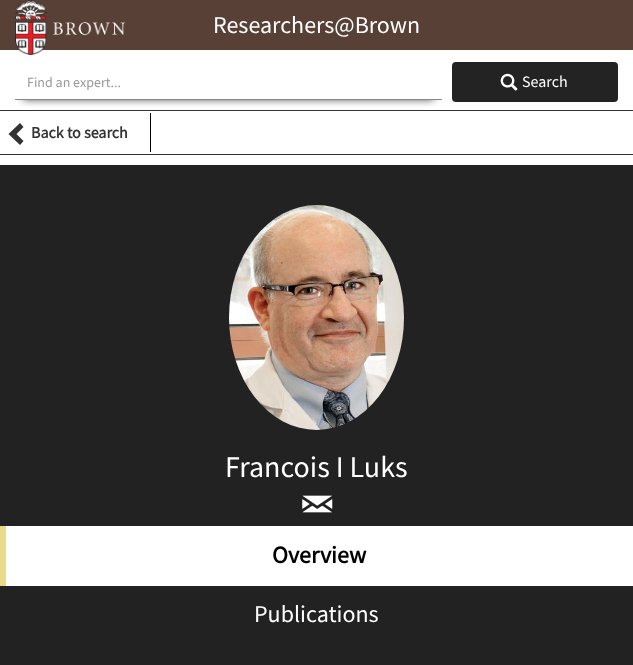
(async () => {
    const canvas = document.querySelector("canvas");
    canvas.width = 633;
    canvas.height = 665;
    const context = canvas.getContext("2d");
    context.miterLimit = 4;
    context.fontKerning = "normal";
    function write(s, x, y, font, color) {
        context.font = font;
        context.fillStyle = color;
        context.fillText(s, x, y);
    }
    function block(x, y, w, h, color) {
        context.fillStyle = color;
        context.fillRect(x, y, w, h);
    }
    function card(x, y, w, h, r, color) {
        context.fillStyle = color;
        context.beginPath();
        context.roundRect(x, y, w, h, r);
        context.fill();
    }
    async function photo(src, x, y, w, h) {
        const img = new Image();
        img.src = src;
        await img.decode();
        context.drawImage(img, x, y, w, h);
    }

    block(0, 0, 633, 665, "rgb(255, 255, 255)");
    block(0, 0, 633, 50, "rgb(89, 64, 54)");
    await photo("media/1.png", 15, 0, 110, 55);
    write("Researchers@Brown", 213, 33, "24px Source Sans Pro", "rgb(255, 255, 255)");
    block(0, 110, 633, 1, "rgb(51, 51, 51)");
    context.save();
    context.beginPath();
    context.rect(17, 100, 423, 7);
    context.clip();
    context.filter = "blur(4px)";
    context.beginPath();
    context.rect(23, 79, 411, 20);
    context.fill();
    context.filter = "none";
    context.restore();
    block(15, 99, 427, 1, "rgb(136, 136, 136)");
    write("Find an expert...", 27, 87, "14px Source Sans Pro", "rgb(153, 153, 153)");
    card(452, 62, 166, 40, 4, "rgb(35, 35, 35)");
    await photo("media/2.png", 500, 73, 18, 18);
    write("Search", 522, 87, "16px Source Sans Pro", "rgb(255, 255, 255)");
    block(0, 154, 633, 1, "rgb(51, 51, 51)");
    context.beginPath();
    context.moveTo(23.5, 127);
    context.lineTo(16.5, 134);
    context.lineTo(23.5, 141);
    context.lineTo(20, 145);
    context.lineTo(8.5, 134);
    context.lineTo(20, 123);
    context.closePath();
    context.fill();
    write("Back to search", 31, 138, "bold 16px Source Sans Pro", "rgb(51, 51, 51)");
    block(150, 113, 1, 39, "rgb(0, 0, 0)");
    block(0, 165, 633, 500, "rgb(34, 34, 34)");
    await photo("media/3.png", 229, 205, 175, 225);
    write("Francois I Luks", 225, 477, "30px Source Sans Pro", "rgb(255, 255, 255)");
    await photo("media/4.png", 302, 495, 31, 18);
    block(6, 526, 627, 60, "rgb(255, 255, 255)");
    block(0, 526, 6, 60, "rgb(232, 217, 139)");
    write("Overview", 272, 563, "bold 24px Source Sans Pro", "rgb(0, 0, 0)");
    write("Publications", 254, 622, "24px Source Sans Pro", "rgb(255, 255, 255)");
})();
